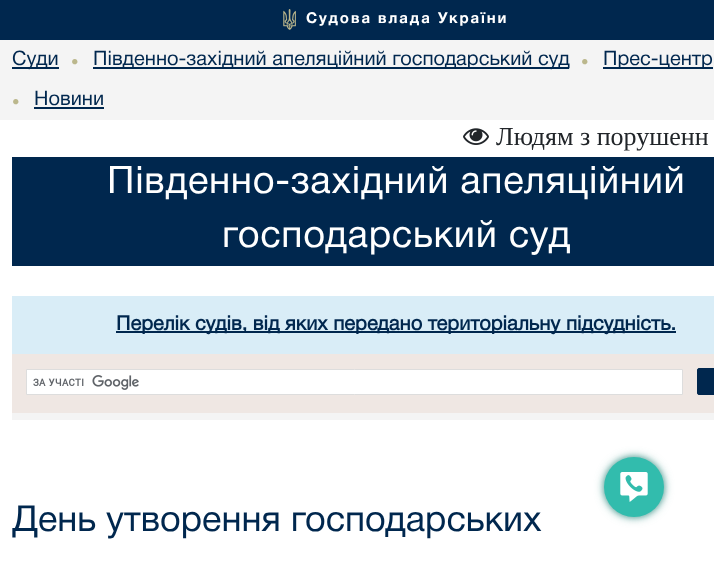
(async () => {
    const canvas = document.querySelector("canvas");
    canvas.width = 714;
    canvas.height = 567;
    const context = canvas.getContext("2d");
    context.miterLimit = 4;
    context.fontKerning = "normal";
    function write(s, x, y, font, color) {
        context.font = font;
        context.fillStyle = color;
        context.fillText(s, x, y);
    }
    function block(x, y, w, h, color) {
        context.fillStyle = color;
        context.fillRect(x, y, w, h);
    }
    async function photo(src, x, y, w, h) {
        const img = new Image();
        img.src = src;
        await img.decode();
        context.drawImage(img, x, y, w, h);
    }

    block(0, 0, 714, 567, "rgb(255, 255, 255)");
    block(0, 0, 714, 40, "rgb(0, 39, 78)");
    await photo("media/1.png", 283, 9, 13, 21);
    context.letterSpacing = "1.9px";
    write("Судова влада України", 306, 23, "bold 15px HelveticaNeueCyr", "rgb(255, 255, 255)");
    block(0, 40, 714, 80, "rgb(244, 244, 244)");
    block(12, 67, 47, 2, "rgb(0, 39, 78)");
    context.letterSpacing = "0px";
    write("Суди", 12, 65, "20px HelveticaNeueCyr", "rgb(0, 39, 78)");
    context.letterSpacing = "1.9px";
    write("•", 71, 67, "bold 15px HelveticaNeueCyr", "rgb(187, 183, 140)");
    block(93, 67, 476, 2, "rgb(0, 39, 78)");
    context.letterSpacing = "0px";
    write("Південно-західний апеляційний господарський суд", 93, 65, "20px HelveticaNeueCyr", "rgb(0, 39, 78)");
    context.letterSpacing = "1.9px";
    write("•", 581, 67, "bold 15px HelveticaNeueCyr", "rgb(187, 183, 140)");
    block(603, 67, 110, 2, "rgb(0, 39, 78)");
    context.letterSpacing = "0px";
    write("Прес-центр", 603, 65, "20px HelveticaNeueCyr", "rgb(0, 39, 78)");
    context.letterSpacing = "1.9px";
    write("•", 12, 107, "bold 15px HelveticaNeueCyr", "rgb(187, 183, 140)");
    context.letterSpacing = "0px";
    write("Новини", 34, 105, "20px HelveticaNeueCyr", "rgb(0, 39, 78)");
    block(34, 107, 70, 2, "rgb(0, 39, 78)");
    await photo("media/2.png", 463, 128, 26, 17);
    write("Людям з порушенн", 496, 145, "26px Liberation Serif", "rgb(33, 37, 41)");
    block(12, 157, 702, 109, "rgb(0, 39, 78)");
    context.letterSpacing = "0.7px";
    write("Південно-західний апеляційний", 107, 193, "38px HelveticaNeueCyr", "rgb(255, 255, 255)");
    write("господарський суд", 222, 247, "38px HelveticaNeueCyr", "rgb(255, 255, 255)");
    block(12, 296, 702, 58, "rgb(217, 237, 247)");
    block(116, 331, 560, 2, "rgb(0, 39, 78)");
    context.letterSpacing = "0px";
    write("Перелік судів, від яких передано територіальну підсудність.", 116, 330, "bold 20px 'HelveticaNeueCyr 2'", "rgb(0, 39, 78)");
    block(12, 413, 702, 7, "rgb(244, 244, 244)");
    block(12, 354, 702, 59, "rgb(239, 231, 227)");
    context.fillStyle = "rgb(255, 255, 255)";
    context.beginPath();
    context.rect(26.5, 369.5, 656, 25);
    context.fill();
    context.strokeStyle = "rgb(221, 221, 221)";
    context.stroke();
    await photo("media/3.png", 33, 375, 106, 15);
    context.fillStyle = "rgb(0, 39, 78)";
    context.beginPath();
    context.roundRect(697.5, 368.5, 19, 26, 1.5);
    context.fill();
    context.strokeStyle = "rgb(0, 39, 78)";
    context.stroke();
    write("День утворення господарських", 12, 531, "36px HelveticaNeueCyr", "rgb(0, 39, 78)");
    context.fillStyle = "rgba(33, 130, 119, 0.42)";
    context.filter = "blur(5px)";
    context.beginPath();
    context.roundRect(603, 456, 62, 62, 31);
    context.fill();
    context.filter = "none";
    context.fillStyle = "rgba(33, 130, 119, 0.46)";
    context.filter = "blur(2.5px)";
    context.beginPath();
    context.roundRect(603, 456, 62, 62, 31);
    context.fill();
    context.filter = "none";
    context.fillStyle = "rgb(50, 188, 173)";
    context.beginPath();
    context.arc(634, 487, 30, 0, Math.PI * 2);
    context.fill();
    await photo("media/4.png", 620, 472, 28, 30);
})();
